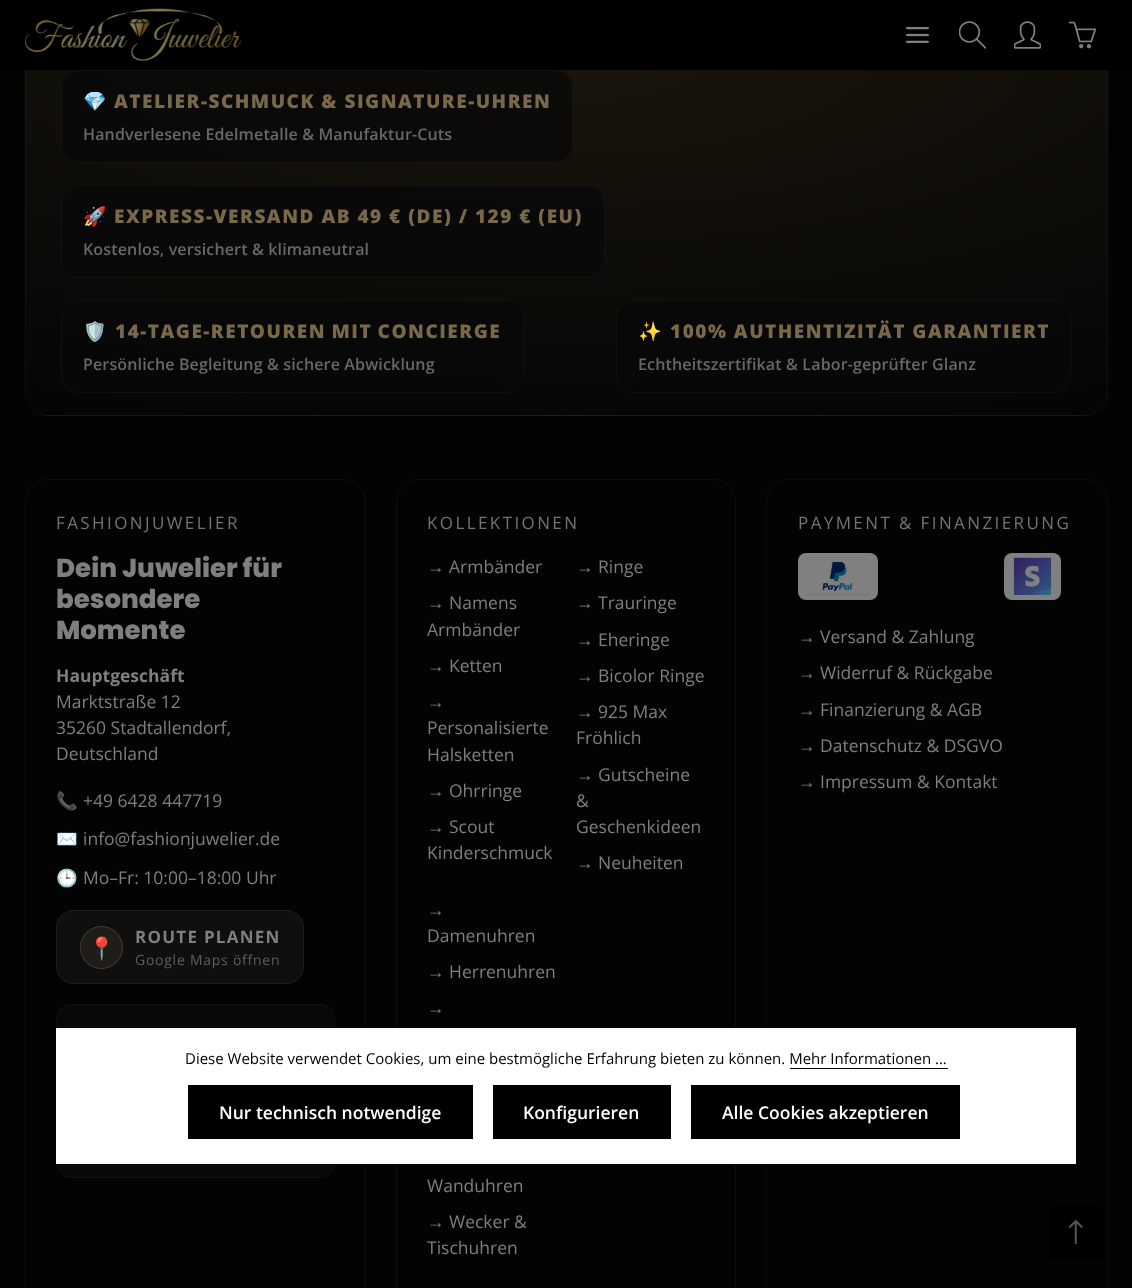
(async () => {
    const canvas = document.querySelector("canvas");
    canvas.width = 1132;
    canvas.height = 1288;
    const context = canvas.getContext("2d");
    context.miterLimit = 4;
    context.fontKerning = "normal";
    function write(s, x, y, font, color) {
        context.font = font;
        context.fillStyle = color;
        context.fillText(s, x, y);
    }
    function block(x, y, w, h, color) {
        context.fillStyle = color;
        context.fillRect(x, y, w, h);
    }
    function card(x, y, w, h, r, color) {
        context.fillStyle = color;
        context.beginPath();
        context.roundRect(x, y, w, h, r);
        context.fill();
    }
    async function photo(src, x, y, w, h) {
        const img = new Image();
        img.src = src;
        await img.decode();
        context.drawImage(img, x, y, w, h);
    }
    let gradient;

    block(0, 0, 1132, 1288, "rgb(3, 3, 4)");
    context.save();
    context.beginPath();
    context.roundRect(25, 46, 1083, 370, 23);
    context.clip();
    gradient = context.createRadialGradient(-514, 141.06, 0, -514, 141.06, 1296);
    gradient.addColorStop(0, "rgb(26, 22, 13)");
    gradient.addColorStop(1, "rgb(3, 3, 4)");
    context.fillStyle = gradient;
    context.beginPath();
    context.rect(25, 70, 1, 330);
    context.save();
    context.clip();
    context.scale(1, 441 / 1296);
    context.fillRect(0, 0, 1132, 3786);
    context.restore();
    gradient = context.createRadialGradient(566, 141.06, 0, 566, 141.06, 1296);
    gradient.addColorStop(0, "rgb(26, 22, 13)");
    gradient.addColorStop(1, "rgb(3, 3, 4)");
    context.fillStyle = gradient;
    context.beginPath();
    context.rect(26, 70, 1080, 345);
    context.save();
    context.clip();
    context.scale(1, 441 / 1296);
    context.fillRect(0, 0, 1132, 3786);
    context.restore();
    gradient = context.createRadialGradient(1646, 141.06, 0, 1646, 141.06, 1296);
    gradient.addColorStop(0, "rgb(26, 22, 13)");
    gradient.addColorStop(1, "rgb(3, 3, 4)");
    context.fillStyle = gradient;
    context.beginPath();
    context.rect(1106, 70, 2, 333);
    context.save();
    context.clip();
    context.scale(1, 441 / 1296);
    context.fillRect(0, 0, 1132, 3786);
    context.restore();
    gradient = context.createRadialGradient(566, 1219.59, 0, 566, 1219.59, 1296);
    gradient.addColorStop(0, "rgb(26, 22, 13)");
    gradient.addColorStop(1, "rgb(3, 3, 4)");
    context.fillStyle = gradient;
    context.beginPath();
    context.rect(41, 415, 1051, 1);
    context.save();
    context.clip();
    context.scale(1, 441 / 1296);
    context.fillRect(0, 0, 1132, 3786);
    context.restore();
    context.restore();
    context.beginPath();
    context.roundRect(25.5, 46.5, 1082, 369, 22.5);
    context.strokeStyle = "rgba(128, 128, 128, 0.08)";
    context.stroke();
    block(0, 0, 1132, 70, "rgb(0, 0, 0)");
    await photo("media/1.png", 25, 8, 217, 53);
    await photo("media/2.png", 906, 27, 23, 16);
    await photo("media/3.png", 959, 21, 27, 28);
    await photo("media/4.png", 1014, 21, 27, 28);
    await photo("media/5.png", 1069, 21, 27, 28);
    card(61, 70, 512, 93, 18, "rgba(8, 8, 10, 0.75)");
    context.beginPath();
    context.roundRect(61.5, 70.5, 511, 92, 17.5);
    context.stroke();
    context.letterSpacing = "1.5px";
    write("💎", 83, 108, "bold 19px Noto Color Emoji", "rgb(122, 104, 74)");
    write("ATELIER-SCHMUCK & SIGNATURE-UHREN", 114, 108, "800 19px Open Sans", "rgb(122, 104, 74)");
    context.letterSpacing = "0.15px";
    write("Handverlesene Edelmetalle & Manufaktur-Cuts", 83, 140, "600 16px Open Sans", "rgb(104, 104, 104)");
    card(61, 185, 544, 93, 18, "rgba(8, 8, 10, 0.75)");
    context.beginPath();
    context.roundRect(61.5, 185.5, 543, 92, 17.5);
    context.stroke();
    context.letterSpacing = "1.5px";
    write("🚀", 83, 223, "bold 19px Noto Color Emoji", "rgb(122, 104, 74)");
    write("EXPRESS-VERSAND AB 49 € (DE) / 129 € (EU)", 114, 223, "800 19px Open Sans", "rgb(122, 104, 74)");
    context.letterSpacing = "0.15px";
    write("Kostenlos, versichert & klimaneutral", 83, 255, "600 16px Open Sans", "rgb(104, 104, 104)");
    card(61, 300, 463, 93, 18, "rgba(8, 8, 10, 0.75)");
    context.beginPath();
    context.roundRect(61.5, 300.5, 462, 92, 17.5);
    context.stroke();
    context.letterSpacing = "1.5px";
    write("🛡️", 83, 338, "bold 19px Noto Color Emoji", "rgb(122, 104, 74)");
    context.wordSpacing = "-1px";
    write("14-TAGE-RETOUREN MIT CONCIERGE", 115, 338, "800 19px Open Sans", "rgb(122, 104, 74)");
    context.letterSpacing = "0.15px";
    context.wordSpacing = "0px";
    write("Persönliche Begleitung & sichere Abwicklung", 83, 370, "600 16px Open Sans", "rgb(104, 104, 104)");
    card(616, 300, 455, 93, 18, "rgba(8, 8, 10, 0.75)");
    context.beginPath();
    context.roundRect(616.5, 300.5, 454, 92, 17.5);
    context.stroke();
    context.letterSpacing = "1.5px";
    write("✨", 638, 338, "bold 19px Noto Color Emoji", "rgb(122, 104, 74)");
    write("100% AUTHENTIZITÄT GARANTIERT", 670, 338, "800 19px Open Sans", "rgb(122, 104, 74)");
    context.letterSpacing = "0.15px";
    write("Echtheitszertifikat & Labor-geprüfter Glanz", 638, 370, "600 16px Open Sans", "rgb(104, 104, 104)");
    context.beginPath();
    context.roundRect(25.5, 479.5, 340, 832, 22.5);
    context.strokeStyle = "rgb(15, 15, 16)";
    context.stroke();
    context.letterSpacing = "2.4px";
    write("FASHIONJUWELIER", 56, 529, "17px Open Sans", "rgb(116, 116, 116)");
    context.letterSpacing = "0px";
    write("Dein Juwelier für", 56, 577, "800 26px Poppins", "rgb(127, 127, 127)");
    write("besondere", 56, 608, "800 26px Poppins", "rgb(127, 127, 127)");
    write("Momente", 56, 639, "800 26px Poppins", "rgb(127, 127, 127)");
    write("Hauptgeschäft", 56, 682, "bold 17.5px Open Sans", "rgb(127, 127, 127)");
    write("Marktstraße 12", 56, 708, "17.5px Open Sans", "rgb(127, 127, 127)");
    write("35260 Stadtallendorf,", 56, 734, "17.5px Open Sans", "rgb(127, 127, 127)");
    write("Deutschland", 56, 760, "17.5px Open Sans", "rgb(127, 127, 127)");
    write("📞", 56, 807, "17.5px Noto Color Emoji", "rgb(96, 80, 42)");
    write("+49 6428 447719", 83, 807, "17.5px Open Sans", "rgb(127, 127, 127)");
    write("✉️", 56, 845, "17.5px Noto Color Emoji", "rgb(96, 80, 42)");
    write("info@fashionjuwelier.de", 83, 845, "17.5px Open Sans", "rgb(127, 127, 127)");
    write("🕒", 56, 884, "17.5px Noto Color Emoji", "rgb(96, 80, 42)");
    write("Mo–Fr: 10:00–18:00 Uhr", 83, 884, "17.5px Open Sans", "rgb(127, 127, 127)");
    card(56, 910, 248, 74, 18, "rgb(15, 15, 16)");
    context.beginPath();
    context.roundRect(56.5, 910.5, 247, 73, 17.5);
    context.strokeStyle = "rgba(128, 128, 128, 0.15)";
    context.stroke();
    context.fillStyle = "rgb(31, 29, 25)";
    context.beginPath();
    context.arc(101.5, 947.5, 21.5, 0, Math.PI * 2);
    context.fill();
    context.beginPath();
    context.arc(101.5, 947.5, 21, 0, Math.PI * 2);
    context.strokeStyle = "rgba(122, 104, 74, 0.4)";
    context.stroke();
    write("📍", 88, 956, "22px Noto Color Emoji", "rgb(127, 127, 127)");
    context.letterSpacing = "1.25px";
    write("ROUTE PLANEN", 135, 943, "bold 17px Open Sans", "rgb(127, 127, 127)");
    context.letterSpacing = "0.75px";
    write("Google Maps öffnen", 135, 965, "14px Open Sans", "rgb(94, 94, 94)");
    context.fillStyle = "rgb(8, 8, 9)";
    context.beginPath();
    context.roundRect(56.5, 1004.5, 278, 173, 14.5);
    context.fill();
    context.strokeStyle = "rgb(17, 17, 18)";
    context.stroke();
    context.beginPath();
    context.roundRect(396.5, 479.5, 339, 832, 22.5);
    context.strokeStyle = "rgb(15, 15, 16)";
    context.stroke();
    context.letterSpacing = "2.4px";
    write("KOLLEKTIONEN", 427, 529, "17px Open Sans", "rgb(116, 116, 116)");
    context.letterSpacing = "0px";
    write("→", 427, 573, "17.5px Liberation Sans", "rgb(127, 127, 127)");
    write("Armbänder", 449, 573, "17.5px Open Sans", "rgb(127, 127, 127)");
    write("→", 427, 609, "17.5px Liberation Sans", "rgb(127, 127, 127)");
    write("Namens", 449, 609, "17.5px Open Sans", "rgb(127, 127, 127)");
    write("Armbänder", 427, 636, "17.5px Open Sans", "rgb(127, 127, 127)");
    write("→", 427, 672, "17.5px Liberation Sans", "rgb(127, 127, 127)");
    write("Ketten", 449, 672, "17.5px Open Sans", "rgb(127, 127, 127)");
    write("→", 427, 708, "17.5px Liberation Sans", "rgb(127, 127, 127)");
    write("Personalisierte", 427, 734, "17.5px Open Sans", "rgb(127, 127, 127)");
    write("Halsketten", 427, 761, "17.5px Open Sans", "rgb(127, 127, 127)");
    write("→", 427, 797, "17.5px Liberation Sans", "rgb(127, 127, 127)");
    write("Ohrringe", 449, 797, "17.5px Open Sans", "rgb(127, 127, 127)");
    write("→", 427, 833, "17.5px Liberation Sans", "rgb(127, 127, 127)");
    write("Scout", 449, 833, "17.5px Open Sans", "rgb(127, 127, 127)");
    write("Kinderschmuck", 427, 859, "17.5px Open Sans", "rgb(127, 127, 127)");
    write("→", 576, 573, "17.5px Liberation Sans", "rgb(127, 127, 127)");
    write("Ringe", 598, 573, "17.5px Open Sans", "rgb(127, 127, 127)");
    write("→", 576, 609, "17.5px Liberation Sans", "rgb(127, 127, 127)");
    write("Trauringe", 598, 609, "17.5px Open Sans", "rgb(127, 127, 127)");
    write("→", 576, 646, "17.5px Liberation Sans", "rgb(127, 127, 127)");
    write("Eheringe", 598, 646, "17.5px Open Sans", "rgb(127, 127, 127)");
    write("→", 576, 682, "17.5px Liberation Sans", "rgb(127, 127, 127)");
    write("Bicolor Ringe", 598, 682, "17.5px Open Sans", "rgb(127, 127, 127)");
    write("→", 576, 718, "17.5px Liberation Sans", "rgb(127, 127, 127)");
    write("925 Max", 598, 718, "17.5px Open Sans", "rgb(127, 127, 127)");
    write("Fröhlich", 576, 744, "17.5px Open Sans", "rgb(127, 127, 127)");
    write("→", 576, 781, "17.5px Liberation Sans", "rgb(127, 127, 127)");
    write("Gutscheine", 598, 781, "17.5px Open Sans", "rgb(127, 127, 127)");
    write("&", 576, 807, "17.5px Open Sans", "rgb(127, 127, 127)");
    write("Geschenkideen", 576, 833, "17.5px Open Sans", "rgb(127, 127, 127)");
    write("→", 576, 869, "17.5px Liberation Sans", "rgb(127, 127, 127)");
    write("Neuheiten", 598, 869, "17.5px Open Sans", "rgb(127, 127, 127)");
    write("→", 427, 916, "17.5px Liberation Sans", "rgb(127, 127, 127)");
    write("Damenuhren", 427, 942, "17.5px Open Sans", "rgb(127, 127, 127)");
    write("→", 427, 978, "17.5px Liberation Sans", "rgb(127, 127, 127)");
    write("Herrenuhren", 449, 978, "17.5px Open Sans", "rgb(127, 127, 127)");
    write("→", 427, 1014, "17.5px Liberation Sans", "rgb(127, 127, 127)");
    write("Wanduhren", 427, 1192, "17.5px Open Sans", "rgb(127, 127, 127)");
    write("→", 427, 1228, "17.5px Liberation Sans", "rgb(127, 127, 127)");
    write("Wecker &", 449, 1228, "17.5px Open Sans", "rgb(127, 127, 127)");
    write("Tischuhren", 427, 1254, "17.5px Open Sans", "rgb(127, 127, 127)");
    context.beginPath();
    context.roundRect(766.5, 479.5, 341, 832, 22.5);
    context.strokeStyle = "rgba(128, 128, 128, 0.08)";
    context.stroke();
    context.letterSpacing = "2.4px";
    write("PAYMENT & FINANZIERUNG", 798, 529, "17px Open Sans", "rgb(116, 116, 116)");
    card(798, 553, 80, 47, 8, "rgb(128, 128, 128)");
    card(1004, 553, 57, 47, 8, "rgb(128, 128, 128)");
    await photo("media/6.png", 807, 557, 61, 38);
    await photo("media/7.png", 1013, 557, 39, 38);
    context.letterSpacing = "0px";
    write("→", 798, 643, "17.5px Liberation Sans", "rgb(127, 127, 127)");
    write("Versand & Zahlung", 820, 643, "17.5px Open Sans", "rgb(127, 127, 127)");
    write("→", 798, 679, "17.5px Liberation Sans", "rgb(127, 127, 127)");
    write("Widerruf & Rückgabe", 820, 679, "17.5px Open Sans", "rgb(127, 127, 127)");
    write("→", 798, 716, "17.5px Liberation Sans", "rgb(127, 127, 127)");
    write("Finanzierung & AGB", 820, 716, "17.5px Open Sans", "rgb(127, 127, 127)");
    write("→", 798, 752, "17.5px Liberation Sans", "rgb(127, 127, 127)");
    write("Datenschutz & DSGVO", 820, 752, "17.5px Open Sans", "rgb(127, 127, 127)");
    write("→", 798, 788, "17.5px Liberation Sans", "rgb(127, 127, 127)");
    write("Impressum & Kontakt", 820, 788, "17.5px Open Sans", "rgb(127, 127, 127)");
    block(56, 1028, 1020, 136, "rgb(255, 255, 255)");
    write("Diese Website verwendet Cookies, um eine bestmögliche Erfahrung bieten zu können. Mehr Informationen ...", 185, 1064, "15px Open Sans", "rgb(0, 0, 0)");
    block(790, 1068, 158, 1, "rgb(0, 0, 0)");
    block(188, 1085, 285, 54, "rgb(0, 0, 0)");
    write("Nur technisch notwendige", 219, 1119, "600 17.5px Open Sans", "rgb(255, 255, 255)");
    block(493, 1085, 178, 54, "rgb(0, 0, 0)");
    write("Konfigurieren", 523, 1119, "600 17.5px Open Sans", "rgb(255, 255, 255)");
    block(691, 1085, 269, 54, "rgb(0, 0, 0)");
    write("Alle Cookies akzeptieren", 722, 1119, "600 17.5px Open Sans", "rgb(255, 255, 255)");
    block(1050, 1206, 53, 53, "rgb(0, 0, 0)");
    await photo("media/8.png", 1068, 1220, 15, 24);
})();
